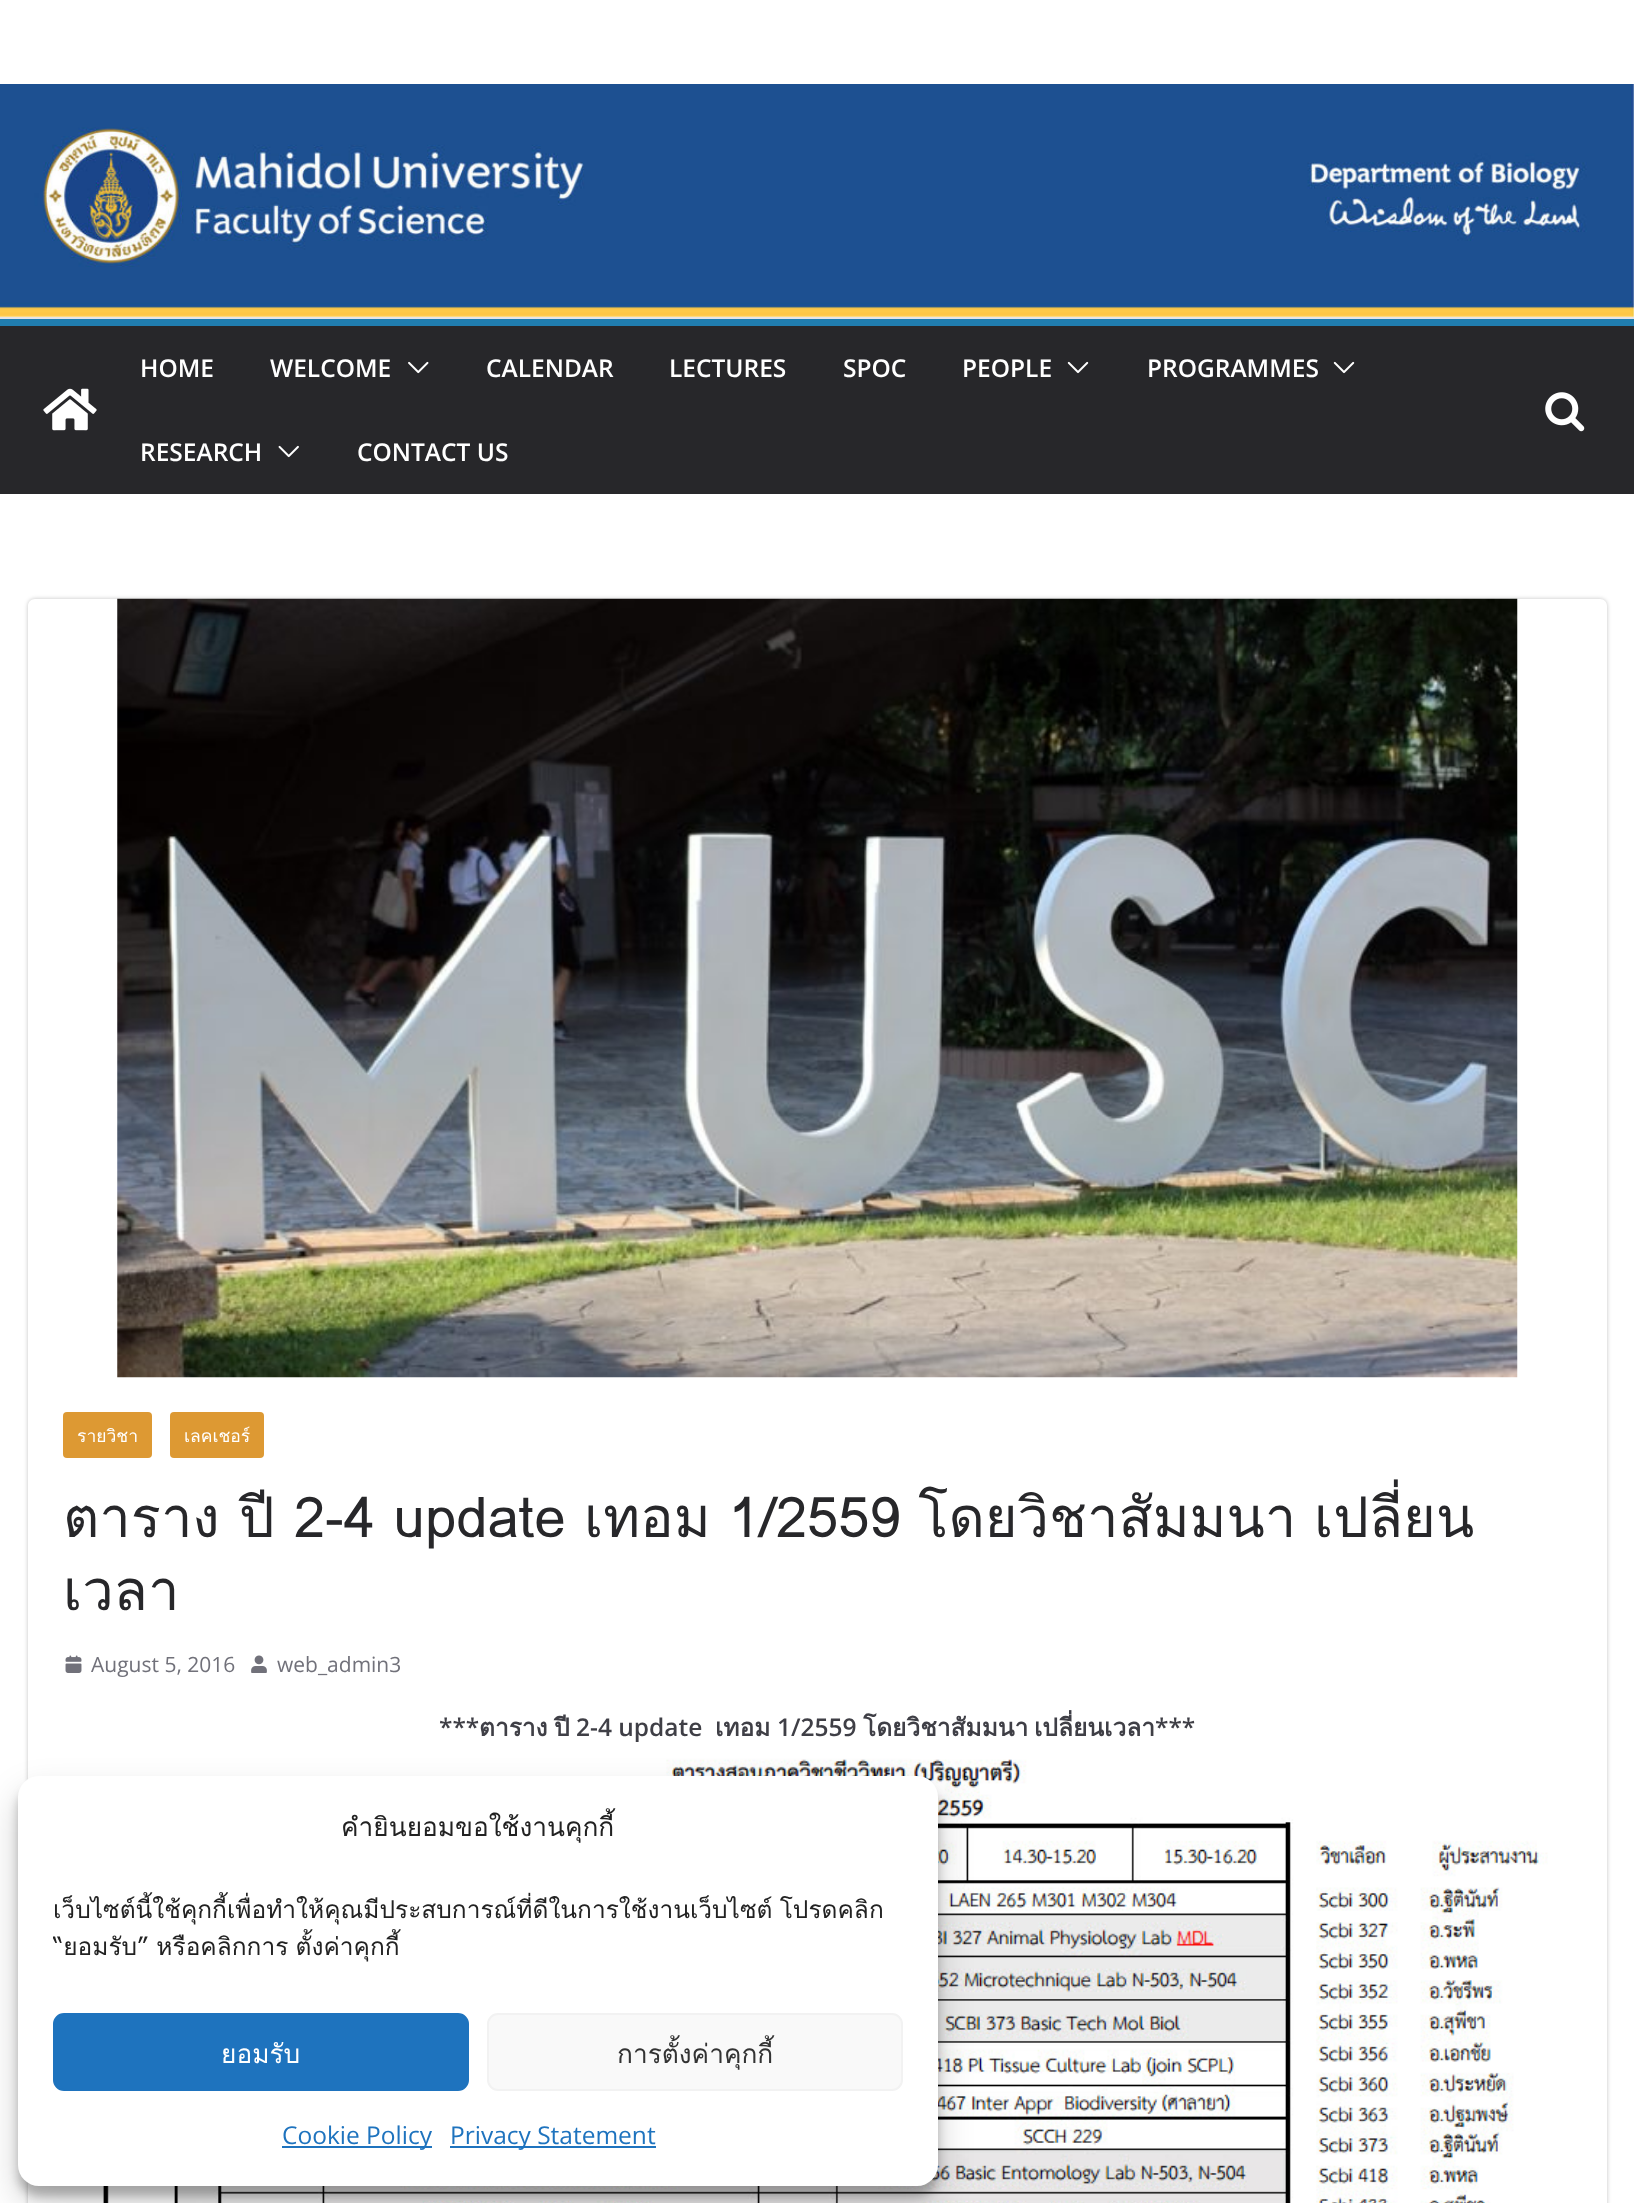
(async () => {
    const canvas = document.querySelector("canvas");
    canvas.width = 1634;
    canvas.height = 2203;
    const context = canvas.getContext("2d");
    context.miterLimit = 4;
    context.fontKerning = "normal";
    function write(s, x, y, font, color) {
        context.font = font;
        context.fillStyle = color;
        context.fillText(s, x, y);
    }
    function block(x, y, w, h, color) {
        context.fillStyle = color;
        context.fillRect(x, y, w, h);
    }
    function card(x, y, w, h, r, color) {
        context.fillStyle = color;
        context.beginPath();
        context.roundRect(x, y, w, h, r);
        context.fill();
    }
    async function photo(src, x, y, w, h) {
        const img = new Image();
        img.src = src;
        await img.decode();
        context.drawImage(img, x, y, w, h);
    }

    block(0, 0, 1634, 2203, "rgb(255, 255, 255)");
    await photo("media/1.png", 0, 84, 1634, 233);
    block(0, 317, 1634, 2, "rgb(228, 228, 231)");
    block(0, 326, 1634, 168, "rgb(39, 39, 42)");
    block(0, 319, 1634, 7, "rgb(32, 125, 175)");
    await photo("media/2.png", 43, 388, 54, 43);
    write("HOME", 140, 377, "600 24.5px Open Sans", "rgb(255, 255, 255)");
    write("WELCOME", 270, 377, "600 24.5px Open Sans", "rgb(255, 255, 255)");
    await photo("media/3.png", 408, 361, 21, 13);
    write("CALENDAR", 486, 377, "600 24.5px Open Sans", "rgb(255, 255, 255)");
    write("LECTURES", 669, 377, "600 24.5px Open Sans", "rgb(255, 255, 255)");
    write("SPOC", 843, 377, "600 24.5px Open Sans", "rgb(255, 255, 255)");
    write("PEOPLE", 962, 377, "600 24.5px Open Sans", "rgb(255, 255, 255)");
    await photo("media/4.png", 1067, 361, 22, 13);
    write("PROGRAMMES", 1147, 377, "600 24.5px Open Sans", "rgb(255, 255, 255)");
    await photo("media/4.png", 1333, 361, 22, 13);
    write("RESEARCH", 140, 461, "600 24.5px Open Sans", "rgb(255, 255, 255)");
    await photo("media/5.png", 278, 445, 21, 13);
    write("CONTACT US", 357, 461, "600 24.5px Open Sans", "rgb(255, 255, 255)");
    await photo("media/6.png", 1545, 392, 40, 40);
    context.save();
    context.beginPath();
    context.moveTo(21, 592);
    context.lineTo(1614, 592);
    context.lineTo(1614, 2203);
    context.lineTo(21, 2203);
    context.closePath();
    context.moveTo(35, 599);
    context.lineTo(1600, 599);
    context.bezierCurveTo(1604, 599, 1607, 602, 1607, 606);
    context.lineTo(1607, 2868);
    context.bezierCurveTo(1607, 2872, 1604, 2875, 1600, 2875);
    context.lineTo(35, 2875);
    context.bezierCurveTo(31, 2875, 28, 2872, 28, 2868);
    context.lineTo(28, 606);
    context.bezierCurveTo(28, 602, 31, 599, 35, 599);
    context.closePath();
    context.clip("evenodd");
    context.fillStyle = "rgba(0, 0, 0, 0.24)";
    context.filter = "blur(2px)";
    context.beginPath();
    context.roundRect(28, 599, 1579, 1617, 7);
    context.fill();
    context.filter = "none";
    context.restore();
    await photo("media/7.png", 117, 598, 1401, 780);
    card(63, 1412, 89, 46, 4, "rgb(221, 153, 51)");
    write("รายวิชา", 77, 1442, "17.5px Loma", "rgb(255, 255, 255)");
    card(170, 1412, 94, 46, 4, "rgb(221, 153, 51)");
    write("เลคเชอร์", 184, 1442, "17.5px Loma", "rgb(255, 255, 255)");
    context.wordSpacing = "0.5px";
    write("ตาราง ปี 2-4 update", 63, 1537, "56px Loma", "rgb(39, 39, 42)");
    context.wordSpacing = "-1px";
    write("เทอม 1/2559 โดยวิชาสัมมนา เปลี่ยน", 584, 1537, "56px Loma", "rgb(39, 39, 42)");
    context.wordSpacing = "0px";
    write("เวลา", 63, 1610, "56px Loma", "rgb(39, 39, 42)");
    await photo("media/8.png", 65, 1655, 17, 18);
    write("August 5, 2016", 91, 1672, "21px Open Sans", "rgb(113, 113, 122)");
    await photo("media/9.png", 251, 1655, 16, 18);
    write("web_admin3", 277, 1672, "21px Open Sans", "rgb(113, 113, 122)");
    write("***", 439, 1736, "600 24.5px Open Sans", "rgb(63, 63, 70)");
    write("ตาราง", 479, 1736, "bold 24.5px Loma", "rgb(63, 63, 70)");
    write("ปี", 554, 1736, "bold 24.5px Loma", "rgb(63, 63, 70)");
    write("2-4 update", 576, 1736, "600 24.5px Open Sans", "rgb(63, 63, 70)");
    write("เทอม", 715, 1736, "bold 24.5px Loma", "rgb(63, 63, 70)");
    write("1/2559", 777, 1736, "600 24.5px Open Sans", "rgb(63, 63, 70)");
    write("โดยวิชาสัมมนา", 863, 1736, "bold 24.5px Loma", "rgb(63, 63, 70)");
    write("เปลี่ยนเวลา", 1034, 1736, "bold 24.5px Loma", "rgb(63, 63, 70)");
    write("***", 1155, 1736, "600 24.5px Open Sans", "rgb(63, 63, 70)");
    await photo("media/10.png", 98, 1759, 1450, 444);
    context.fillStyle = "rgba(0, 0, 0, 0.23)";
    context.filter = "blur(5px)";
    context.beginPath();
    context.roundRect(18, 1787, 920, 409, 21);
    context.fill();
    context.filter = "none";
    context.fillStyle = "rgba(0, 0, 0, 0.19)";
    context.filter = "blur(17.5px)";
    context.beginPath();
    context.roundRect(18, 1794, 920, 409, 21);
    context.fill();
    context.filter = "none";
    card(18, 1776, 920, 410, 21, "rgb(255, 255, 255)");
    write("คำยินยอมขอใช้งานคุกกี้", 341, 1836, "26.25px Loma", "rgb(34, 34, 34)");
    context.save();
    context.beginPath();
    context.rect(53, 1890, 850, 82);
    context.clip();
    context.wordSpacing = "-1px";
    write("เว็บไซต์นี้ใช้คุกกี้เพื่อทำให้คุณมีประสบการณ์ที่ดีในการใช้งานเว็บไซต์ โปรดคลิก", 53, 1918, "24.5px Loma", "rgb(34, 34, 34)");
    write("“ยอมรับ” หรือคลิกการ ตั้งค่าคุกกี้", 53, 1955, "24.5px Loma", "rgb(34, 34, 34)");
    context.restore();
    context.fillStyle = "rgb(30, 115, 190)";
    context.beginPath();
    context.roundRect(54, 2014, 414, 76, 10);
    context.fill();
    context.strokeStyle = "rgb(30, 115, 190)";
    context.lineWidth = 2;
    context.stroke();
    write("ยอมรับ", 221, 2063, "26.25px Loma", "rgb(255, 255, 255)");
    context.fillStyle = "rgb(249, 249, 249)";
    context.beginPath();
    context.roundRect(488, 2014, 414, 76, 10);
    context.fill();
    context.strokeStyle = "rgb(242, 242, 242)";
    context.stroke();
    write("การตั้งค่าคุกกี้", 617, 2063, "26.25px Loma", "rgb(51, 51, 51)");
    block(282, 2146, 150, 2, "rgb(30, 115, 190)");
    write("Cookie Policy", 282, 2144, "24.5px Open Sans", "rgb(30, 115, 190)");
    block(450, 2146, 206, 2, "rgb(30, 115, 190)");
    write("Privacy Statement", 450, 2144, "24.5px Open Sans", "rgb(30, 115, 190)");
})();
